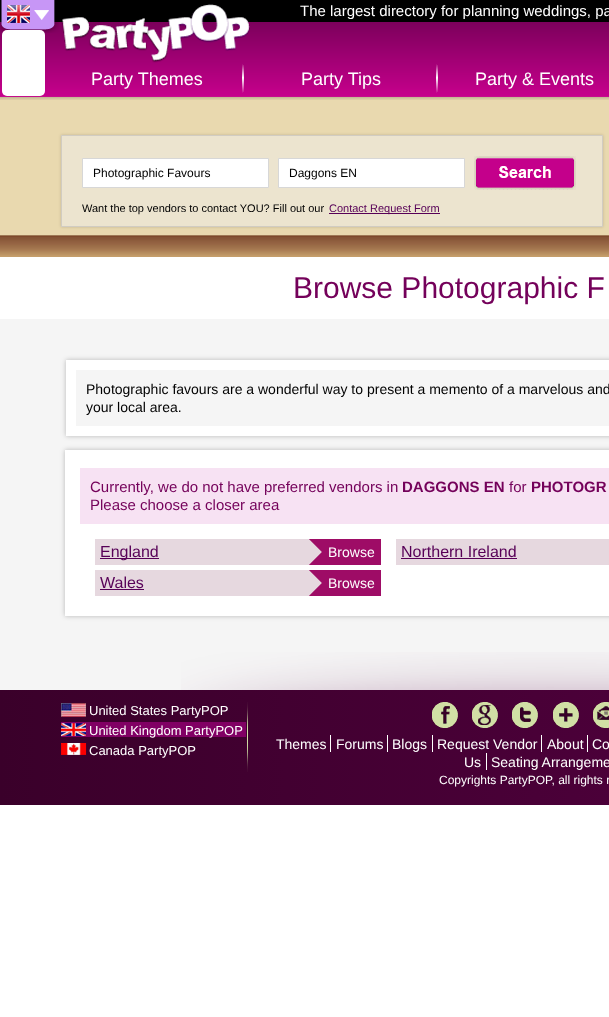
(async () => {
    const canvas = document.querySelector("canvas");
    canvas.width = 609;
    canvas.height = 1017;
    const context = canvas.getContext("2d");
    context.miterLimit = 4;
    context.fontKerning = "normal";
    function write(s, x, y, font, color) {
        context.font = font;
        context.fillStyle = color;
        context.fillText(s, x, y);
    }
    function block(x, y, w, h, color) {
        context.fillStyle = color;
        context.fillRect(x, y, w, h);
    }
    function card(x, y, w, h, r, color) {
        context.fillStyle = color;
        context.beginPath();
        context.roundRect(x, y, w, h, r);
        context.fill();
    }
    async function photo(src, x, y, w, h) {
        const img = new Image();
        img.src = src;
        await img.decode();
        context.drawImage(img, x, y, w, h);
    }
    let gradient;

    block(0, 0, 609, 1017, "rgb(255, 255, 255)");
    block(0, 96, 609, 139, "rgb(233, 217, 175)");
    await photo("media/1.png", 0, 0, 609, 257);
    await photo("media/2.png", 61, 4, 189, 59);
    await photo("media/3.png", 0, 0, 59, 33);
    card(2, 30, 43, 66, 5, "rgb(255, 255, 255)");
    write("The largest directory for planning weddings, pa", 300, 16, "15px Liberation Sans", "rgb(255, 255, 255)");
    await photo("media/4.png", 242, 64, 2, 29);
    write("Party Themes", 91, 85, "18px Liberation Sans", "rgb(255, 255, 255)");
    await photo("media/4.png", 436, 64, 2, 29);
    write("Party Tips", 301, 85, "18px Liberation Sans", "rgb(255, 255, 255)");
    write("Party & Events", 475, 85, "18px Liberation Sans", "rgb(255, 255, 255)");
    context.fillStyle = "rgba(0, 0, 0, 0.17)";
    context.filter = "blur(1.5px)";
    context.beginPath();
    context.rect(61, 135, 542, 92);
    context.fill();
    context.filter = "none";
    context.fillStyle = "rgb(236, 228, 207)";
    context.beginPath();
    context.rect(61.5, 135.5, 541, 91);
    context.fill();
    context.strokeStyle = "rgb(209, 204, 194)";
    context.stroke();
    context.fillStyle = "rgb(255, 255, 255)";
    context.beginPath();
    context.rect(82.5, 158.5, 186, 29);
    context.fill();
    context.strokeStyle = "rgb(215, 215, 215)";
    context.stroke();
    write("Photographic Favours", 93, 177, "12px Liberation Sans", "rgb(0, 0, 0)");
    context.fillStyle = "rgb(255, 255, 255)";
    context.beginPath();
    context.rect(278.5, 158.5, 186, 29);
    context.fill();
    context.stroke();
    write("Daggons EN", 289, 177, "12px Liberation Sans", "rgb(0, 0, 0)");
    await photo("media/5.png", 474, 156, 102, 34);
    write("Want the top vendors to contact YOU? Fill out our", 82, 212, "11px Liberation Sans", "rgb(0, 0, 0)");
    block(329, 213, 111, 1, "rgb(87, 0, 87)");
    write("Contact Request Form", 329, 212, "11px Liberation Sans", "rgb(87, 0, 87)");
    block(0, 319, 609, 371, "rgb(245, 245, 245)");
    write("Browse Photographic F", 293, 298, "30px Liberation Sans", "rgb(116, 1, 90)");
    await photo("media/6.png", 181, 652, 428, 38);
    context.save();
    context.beginPath();
    context.moveTo(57, 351);
    context.lineTo(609, 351);
    context.lineTo(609, 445);
    context.lineTo(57, 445);
    context.closePath();
    context.moveTo(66, 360);
    context.lineTo(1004, 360);
    context.lineTo(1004, 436);
    context.lineTo(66, 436);
    context.closePath();
    context.clip("evenodd");
    context.fillStyle = "rgba(0, 0, 0, 0.25)";
    context.filter = "blur(2.5px)";
    context.beginPath();
    context.rect(66, 360, 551, 76);
    context.fill();
    context.filter = "none";
    context.restore();
    context.strokeStyle = "rgb(255, 255, 255)";
    context.lineWidth = 10;
    context.strokeRect(71, 365, 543, 66);
    write("Photographic favours are a wonderful way to present a memento of a marvelous and", 86, 394, "14px Liberation Sans", "rgb(0, 0, 0)");
    write("your local area.", 86, 412, "14px Liberation Sans", "rgb(0, 0, 0)");
    context.fillStyle = "rgba(0, 0, 0, 0.25)";
    context.filter = "blur(2.5px)";
    context.beginPath();
    context.rect(65, 450, 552, 166);
    context.fill();
    context.filter = "none";
    block(65, 450, 544, 166, "rgb(255, 255, 255)");
    block(80, 468, 529, 56, "rgb(247, 226, 243)");
    write("Currently, we do not have preferred vendors in", 90, 492, "15px Liberation Sans", "rgb(116, 1, 90)");
    write("DAGGONS EN", 402, 492, "bold 15px Liberation Sans", "rgb(116, 1, 90)");
    write("for", 509, 492, "15px Liberation Sans", "rgb(116, 1, 90)");
    write("PHOTOGR", 531, 492, "bold 15px Liberation Sans", "rgb(116, 1, 90)");
    write("Please choose a closer area", 90, 510, "15px Liberation Sans", "rgb(116, 1, 90)");
    block(95, 539, 227, 26, "rgb(230, 216, 223)");
    await photo("media/7.png", 309, 539, 13, 26);
    block(100, 558, 59, 1, "rgb(87, 0, 87)");
    write("England", 100, 557, "16px Liberation Sans", "rgb(87, 0, 87)");
    block(322, 539, 59, 26, "rgb(158, 12, 102)");
    write("Browse", 328, 557, "14px Liberation Sans", "rgb(255, 255, 255)");
    block(396, 539, 213, 26, "rgb(230, 216, 223)");
    write("Northern Ireland", 401, 557, "16px Liberation Sans", "rgb(87, 0, 87)");
    block(401, 558, 116, 1, "rgb(87, 0, 87)");
    block(95, 570, 227, 26, "rgb(230, 216, 223)");
    await photo("media/7.png", 309, 570, 13, 26);
    write("Wales", 100, 588, "16px Liberation Sans", "rgb(87, 0, 87)");
    block(100, 589, 44, 1, "rgb(87, 0, 87)");
    block(322, 570, 59, 26, "rgb(158, 12, 102)");
    write("Browse", 328, 588, "14px Liberation Sans", "rgb(255, 255, 255)");
    gradient = context.createLinearGradient(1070, 748, 0, 748);
    gradient.addColorStop(0, "rgb(88, 0, 68)");
    gradient.addColorStop(1, "rgb(58, 0, 42)");
    context.fillStyle = gradient;
    context.fillRect(0, 690, 609, 115);
    await photo("media/8.png", 247, 702, 1, 70);
    await photo("media/9.png", 61, 703, 25, 14);
    write("United States PartyPOP", 89, 715, "13px Liberation Sans", "rgb(255, 255, 255)");
    block(61, 722, 185, 15, "rgb(129, 0, 100)");
    await photo("media/10.png", 61, 723, 25, 13);
    write("United Kingdom PartyPOP", 89, 735, "13px Liberation Sans", "rgb(255, 255, 255)");
    await photo("media/11.png", 61, 743, 26, 12);
    write("Canada PartyPOP", 89, 755, "13px Liberation Sans", "rgb(255, 255, 255)");
    await photo("media/12.png", 432, 702, 26, 26);
    await photo("media/13.png", 472, 702, 26, 26);
    await photo("media/14.png", 512, 702, 26, 26);
    await photo("media/15.png", 553, 702, 26, 26);
    await photo("media/16.png", 593, 702, 16, 26);
    write("Themes", 276, 749, "14px Liberation Sans", "rgb(255, 255, 255)");
    block(330, 735, 1, 17, "rgb(255, 255, 255)");
    write("Forums", 336, 749, "14px Liberation Sans", "rgb(255, 255, 255)");
    block(387, 735, 1, 17, "rgb(255, 255, 255)");
    write("Blogs", 392, 749, "14px Liberation Sans", "rgb(255, 255, 255)");
    block(432, 735, 1, 17, "rgb(255, 255, 255)");
    write("Request Vendor", 437, 749, "14px Liberation Sans", "rgb(255, 255, 255)");
    block(541, 735, 1, 17, "rgb(255, 255, 255)");
    write("About", 547, 749, "14px Liberation Sans", "rgb(255, 255, 255)");
    block(587, 735, 1, 17, "rgb(255, 255, 255)");
    write("Co", 592, 749, "14px Liberation Sans", "rgb(255, 255, 255)");
    write("Us", 464, 767, "14px Liberation Sans", "rgb(255, 255, 255)");
    block(486, 753, 1, 17, "rgb(255, 255, 255)");
    write("Seating Arrangeme", 491, 767, "14px Liberation Sans", "rgb(255, 255, 255)");
    write("Copyrights PartyPOP, all rights r", 439, 784, "12px Liberation Sans", "rgb(255, 255, 255)");
})();
